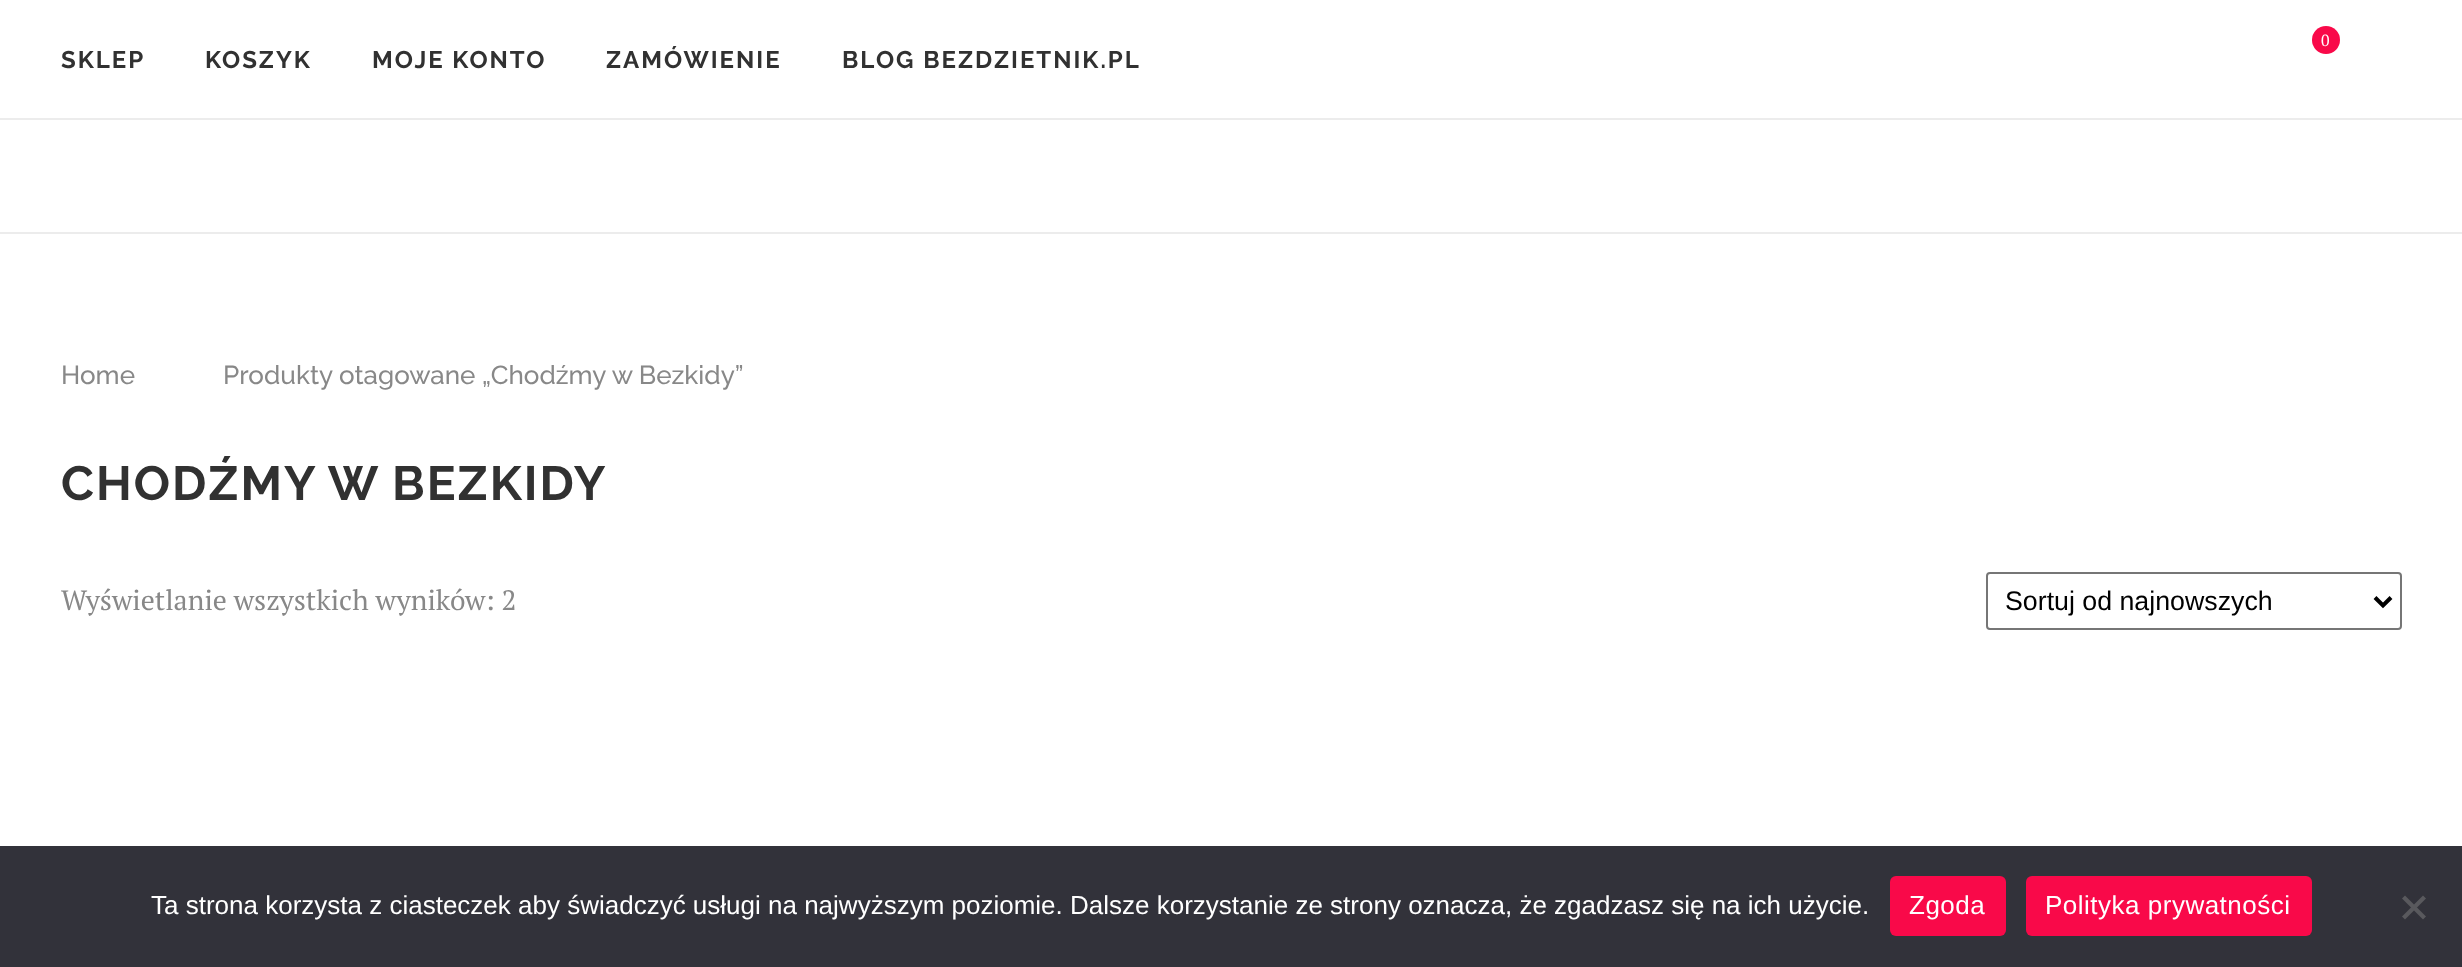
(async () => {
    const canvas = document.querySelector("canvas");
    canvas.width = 2462;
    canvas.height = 967;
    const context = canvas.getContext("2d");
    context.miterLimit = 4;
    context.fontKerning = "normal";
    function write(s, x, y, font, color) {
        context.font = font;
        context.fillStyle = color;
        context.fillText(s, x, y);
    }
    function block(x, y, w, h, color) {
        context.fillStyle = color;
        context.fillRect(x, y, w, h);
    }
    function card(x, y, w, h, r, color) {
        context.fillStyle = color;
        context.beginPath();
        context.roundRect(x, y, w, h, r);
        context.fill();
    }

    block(0, 0, 2462, 967, "rgb(255, 255, 255)");
    block(0, 118, 2462, 2, "rgb(236, 236, 236)");
    context.fillStyle = "rgb(249, 9, 73)";
    context.beginPath();
    context.arc(2326, 40, 14, 0, Math.PI * 2);
    context.fill();
    write("0", 2321, 46, "16px PT Serif", "rgb(255, 255, 255)");
    context.letterSpacing = "2px";
    write("SKLEP", 61, 68, "bold 24px Raleway", "rgb(49, 49, 49)");
    write("KOSZYK", 205, 68, "bold 24px Raleway", "rgb(49, 49, 49)");
    write("MOJE KONTO", 372, 68, "bold 24px Raleway", "rgb(49, 49, 49)");
    write("ZAMÓWIENIE", 606, 68, "bold 24px Raleway", "rgb(49, 49, 49)");
    write("BLOG BEZDZIETNIK.PL", 842, 68, "bold 24px Raleway", "rgb(49, 49, 49)");
    block(0, 232, 2462, 2, "rgb(236, 236, 236)");
    context.letterSpacing = "0px";
    write("Home", 61, 384, "500 26px Raleway", "rgb(136, 136, 136)");
    write("Produkty otagowane „Chodźmy w Bezkidy”", 223, 384, "500 26px Raleway", "rgb(136, 136, 136)");
    context.letterSpacing = "2px";
    write("CHODŹMY W BEZKIDY", 61, 500, "bold 48px Raleway", "rgb(49, 49, 49)");
    context.letterSpacing = "0px";
    write("Wyświetlanie wszystkich wyników: 2", 61, 610, "28px PT Serif", "rgb(136, 136, 136)");
    context.beginPath();
    context.roundRect(1987, 573, 414, 56, 3);
    context.strokeStyle = "rgb(118, 118, 118)";
    context.lineWidth = 2;
    context.stroke();
    context.beginPath();
    context.moveTo(2375, 597.5);
    context.lineTo(2383, 605.5);
    context.lineTo(2391, 597.5);
    context.strokeStyle = "rgb(0, 0, 0)";
    context.lineWidth = 4;
    context.stroke();
    write("Sortuj od najnowszych", 2005, 610, "26.75px Liberation Sans", "rgb(0, 0, 0)");
    block(0, 846, 2462, 121, "rgb(50, 50, 58)");
    write("Ta strona korzysta z ciasteczek aby świadczyć usługi na najwyższym poziomie. Dalsze korzystanie ze strony oznacza, że zgadzasz się na ich użycie.", 151, 914, "26px Liberation Sans", "rgb(255, 255, 255)");
    card(1890, 876, 116, 60, 6, "rgb(249, 9, 73)");
    context.letterSpacing = "0.5px";
    write("Zgoda", 1909, 914, "26px Liberation Sans", "rgb(255, 255, 255)");
    card(2026, 876, 286, 60, 6, "rgb(249, 9, 73)");
    write("Polityka prywatności", 2045, 914, "26px Liberation Sans", "rgb(255, 255, 255)");
    context.fillStyle = "rgb(89, 89, 93)";
    context.beginPath();
    context.moveTo(2423, 895.5);
    context.lineTo(2426, 898.5);
    context.lineTo(2405, 919.5);
    context.lineTo(2402, 916.5);
    context.closePath();
    context.fill();
    context.beginPath();
    context.moveTo(2402, 898.5);
    context.lineTo(2405, 895.5);
    context.lineTo(2426, 916.5);
    context.lineTo(2423, 919.5);
    context.closePath();
    context.fill();
})();
